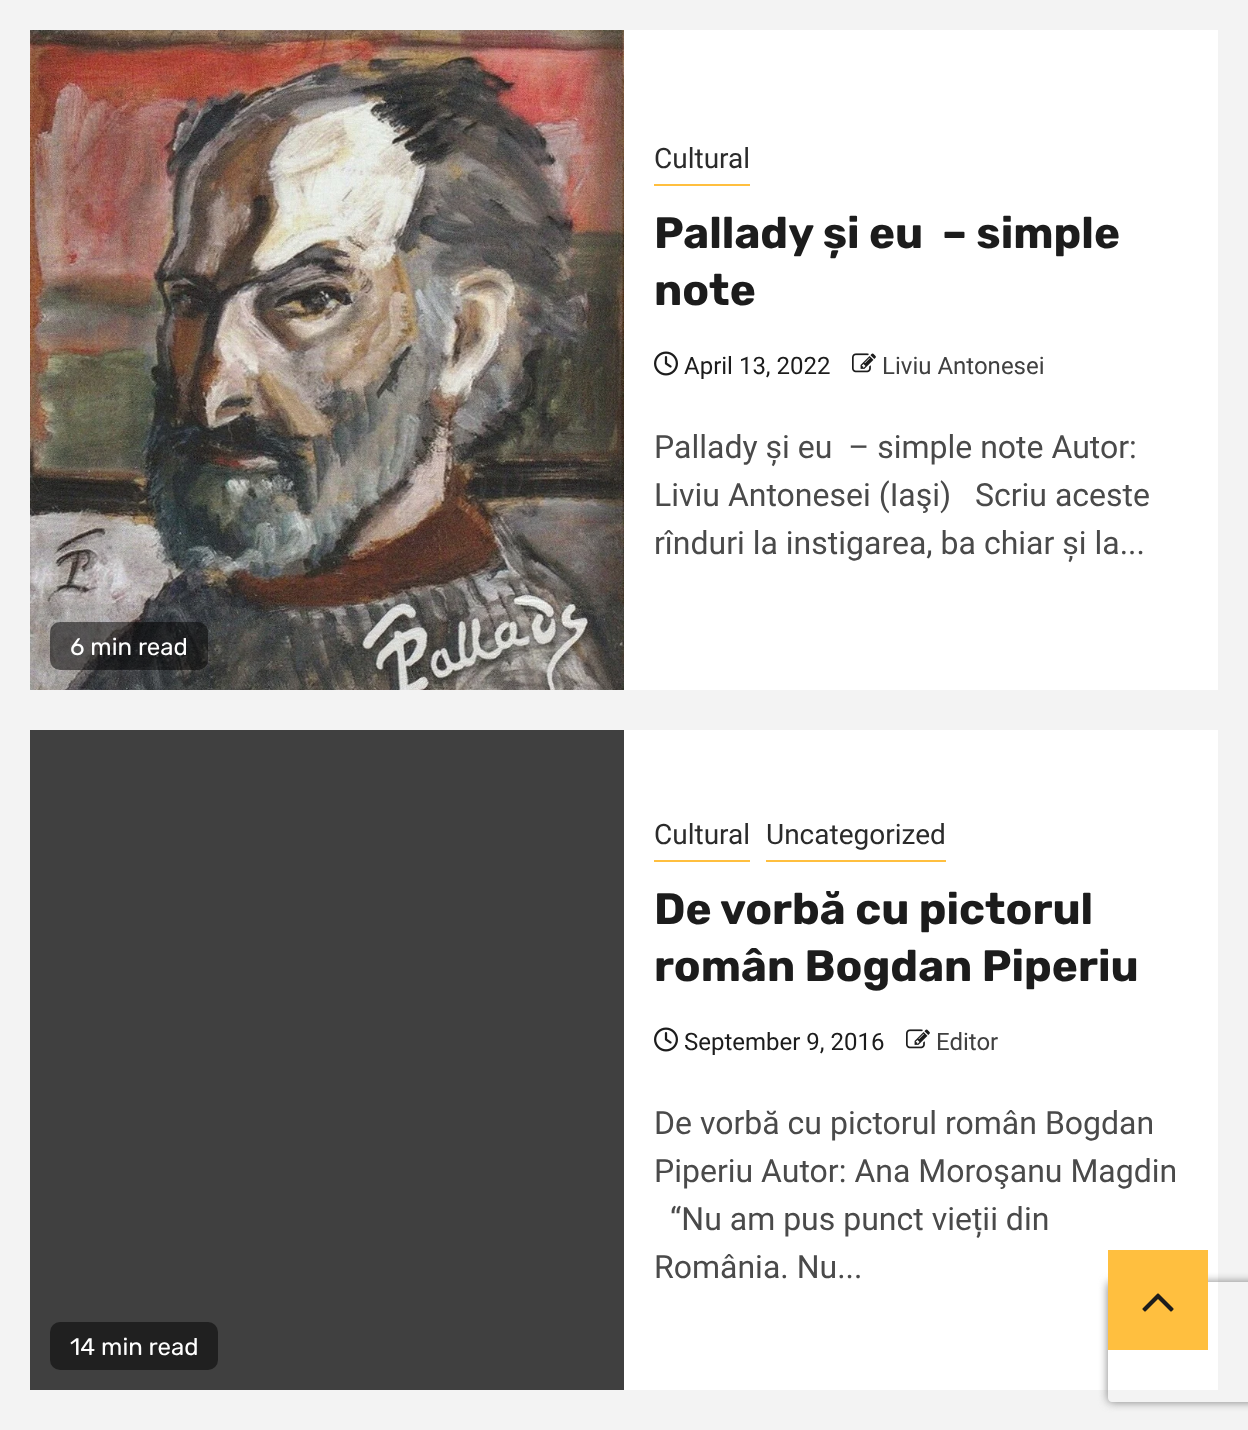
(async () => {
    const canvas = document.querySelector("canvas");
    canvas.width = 1248;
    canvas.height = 1430;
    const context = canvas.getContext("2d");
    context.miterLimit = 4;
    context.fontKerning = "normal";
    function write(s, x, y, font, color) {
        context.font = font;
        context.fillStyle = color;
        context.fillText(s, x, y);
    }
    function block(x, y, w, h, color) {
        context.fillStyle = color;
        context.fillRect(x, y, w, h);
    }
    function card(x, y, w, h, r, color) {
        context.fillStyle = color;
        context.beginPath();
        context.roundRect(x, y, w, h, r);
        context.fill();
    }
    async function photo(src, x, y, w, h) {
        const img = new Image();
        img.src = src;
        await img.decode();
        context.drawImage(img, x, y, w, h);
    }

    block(0, 0, 1248, 1430, "rgb(243, 243, 243)");
    block(624, 30, 594, 660, "rgb(255, 255, 255)");
    block(654, 184, 96, 2, "rgb(255, 191, 63)");
    write("Cultural", 654, 168, "28px Roboto", "rgb(43, 43, 43)");
    write("Pallady și eu  – simple", 654, 248, "bold 44px Rubik", "rgb(28, 28, 28)");
    write("note", 654, 305, "bold 44px Rubik", "rgb(28, 28, 28)");
    await photo("media/1.png", 654, 351, 24, 25);
    write("April 13, 2022", 684, 374, "24px Roboto", "rgb(28, 28, 28)");
    await photo("media/2.png", 852, 353, 24, 20);
    write("Liviu Antonesei", 882, 374, "24px Roboto", "rgb(64, 64, 64)");
    write("Pallady și eu  – simple note Autor:", 654, 458, "32px Roboto", "rgb(74, 74, 74)");
    write("Liviu Antonesei (Iaşi)   Scriu aceste", 654, 506, "32px Roboto", "rgb(74, 74, 74)");
    write("rînduri la instigarea, ba chiar și la...", 654, 554, "32px Roboto", "rgb(74, 74, 74)");
    await photo("media/3.png", 30, 30, 594, 660);
    card(50, 622, 158, 48, 10, "rgba(0, 0, 0, 0.5)");
    write("6 min read", 70, 655, "24px Rubik", "rgb(255, 255, 255)");
    block(624, 730, 594, 660, "rgb(255, 255, 255)");
    block(654, 860, 96, 2, "rgb(255, 191, 63)");
    write("Cultural", 654, 844, "28px Roboto", "rgb(43, 43, 43)");
    block(766, 860, 180, 2, "rgb(255, 191, 63)");
    write("Uncategorized", 766, 844, "28px Roboto", "rgb(43, 43, 43)");
    write("De vorbă cu pictorul", 654, 924, "bold 44px Rubik", "rgb(28, 28, 28)");
    write("român Bogdan Piperiu", 654, 981, "bold 44px Rubik", "rgb(28, 28, 28)");
    await photo("media/1.png", 654, 1027, 24, 25);
    write("September 9, 2016", 684, 1050, "24px Roboto", "rgb(28, 28, 28)");
    await photo("media/2.png", 906, 1029, 24, 20);
    write("Editor", 936, 1050, "24px Roboto", "rgb(64, 64, 64)");
    write("De vorbă cu pictorul român Bogdan", 654, 1134, "32px Roboto", "rgb(74, 74, 74)");
    write("Piperiu Autor: Ana Moroşanu Magdin", 654, 1182, "32px Roboto", "rgb(74, 74, 74)");
    write("“Nu am pus punct vieții din", 670, 1230, "32px Roboto", "rgb(74, 74, 74)");
    write("România. Nu...", 654, 1278, "32px Roboto", "rgb(74, 74, 74)");
    block(30, 730, 594, 660, "rgb(64, 64, 64)");
    card(50, 1322, 168, 48, 10, "rgb(32, 32, 32)");
    write("14 min read", 70, 1355, "24px Rubik", "rgb(255, 255, 255)");
    context.save();
    context.beginPath();
    context.moveTo(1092, 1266);
    context.lineTo(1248, 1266);
    context.lineTo(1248, 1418);
    context.lineTo(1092, 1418);
    context.closePath();
    context.moveTo(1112, 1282);
    context.lineTo(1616, 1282);
    context.bezierCurveTo(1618, 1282, 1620, 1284, 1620, 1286);
    context.lineTo(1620, 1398);
    context.bezierCurveTo(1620, 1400, 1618, 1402, 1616, 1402);
    context.lineTo(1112, 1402);
    context.bezierCurveTo(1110, 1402, 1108, 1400, 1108, 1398);
    context.lineTo(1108, 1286);
    context.bezierCurveTo(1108, 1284, 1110, 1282, 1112, 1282);
    context.closePath();
    context.clip("evenodd");
    context.fillStyle = "rgb(128, 128, 128)";
    context.filter = "blur(5px)";
    context.beginPath();
    context.roundRect(1108, 1282, 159, 120, 4);
    context.fill();
    context.filter = "none";
    context.restore();
    block(1108, 1250, 100, 100, "rgb(255, 191, 63)");
    await photo("media/4.png", 1142, 1293, 32, 19);
})();
